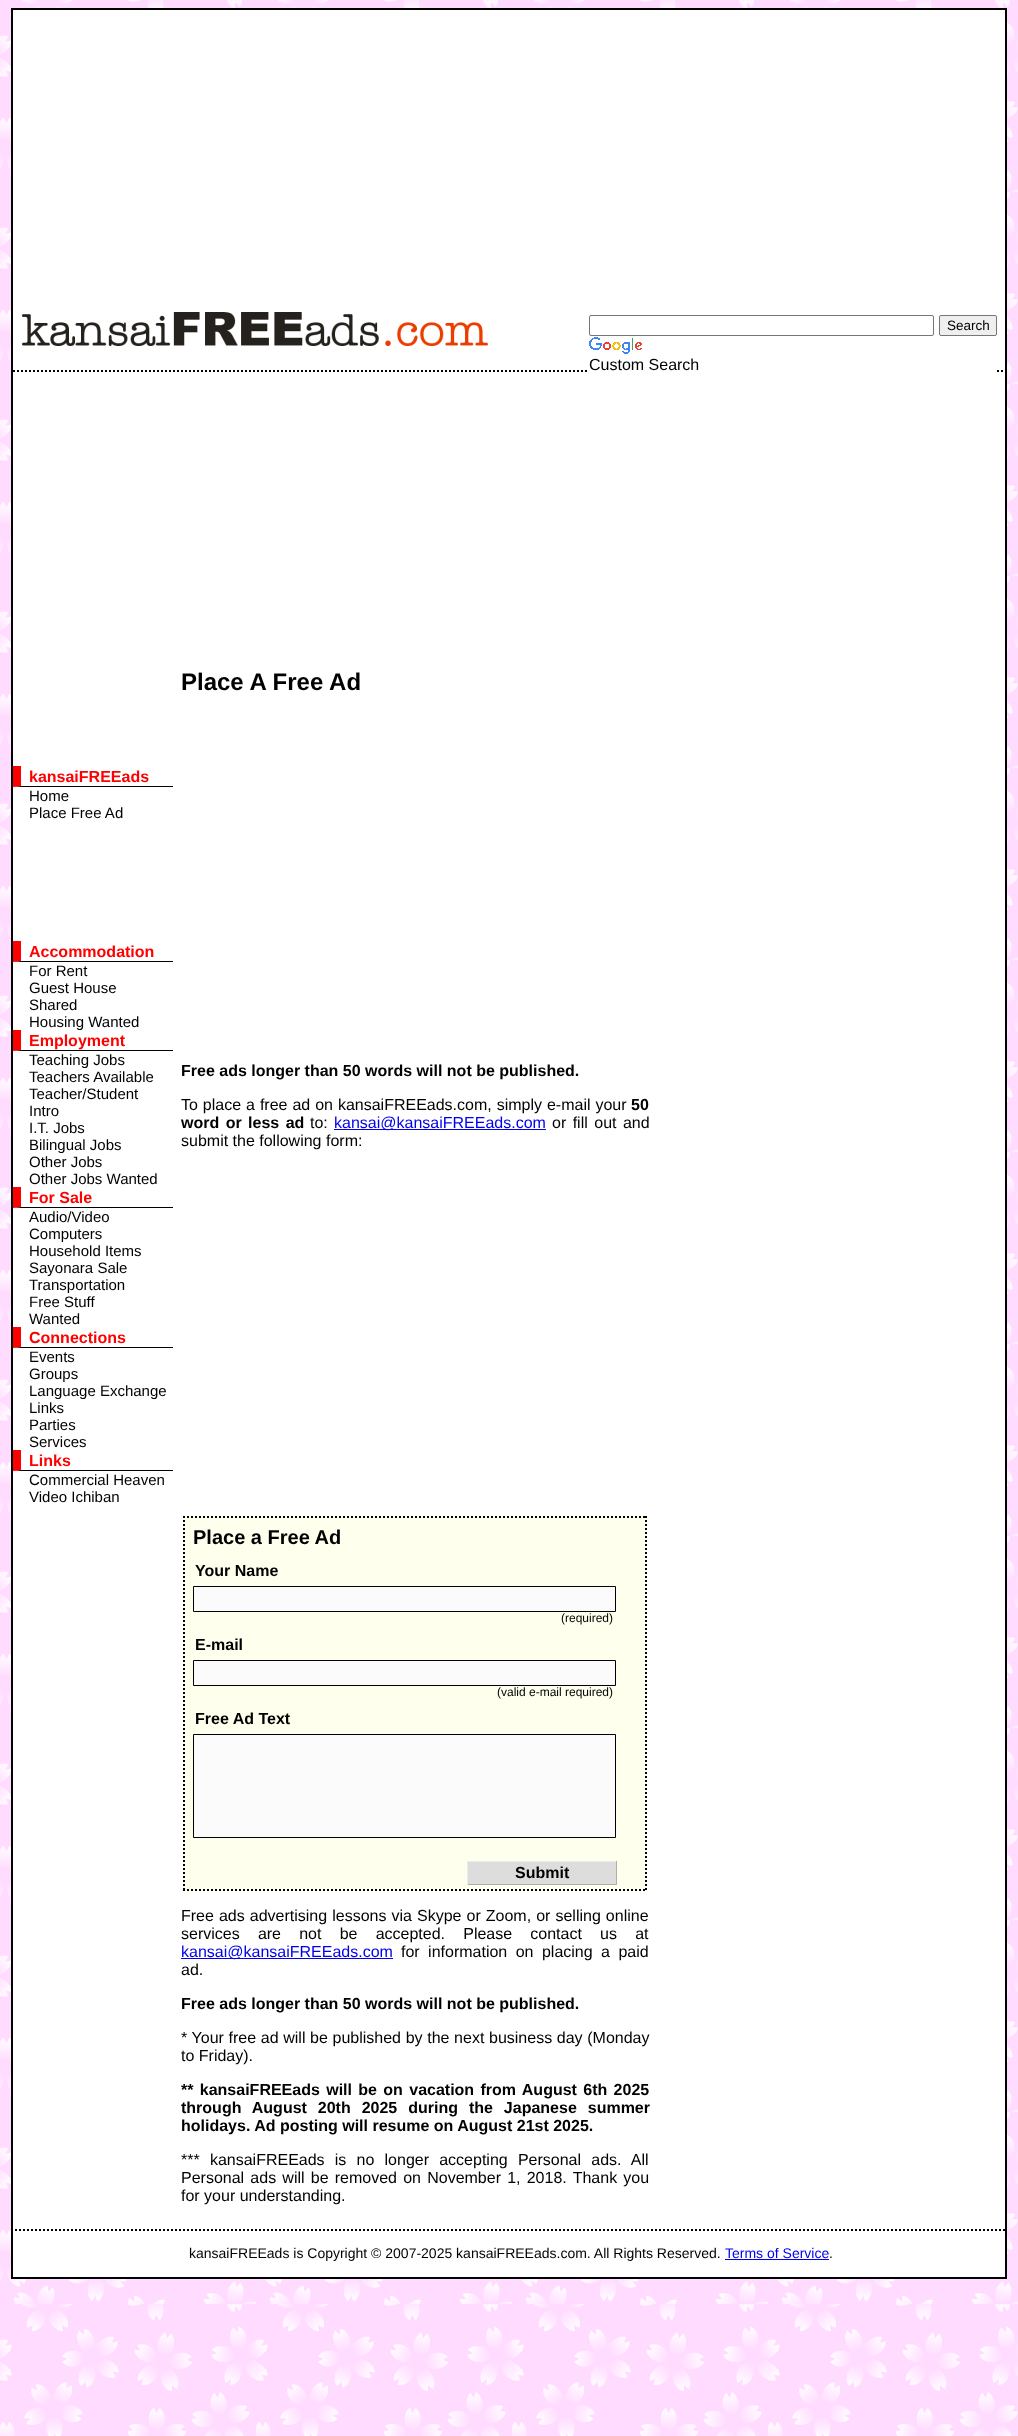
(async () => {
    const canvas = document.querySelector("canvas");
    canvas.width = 1018;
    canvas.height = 2436;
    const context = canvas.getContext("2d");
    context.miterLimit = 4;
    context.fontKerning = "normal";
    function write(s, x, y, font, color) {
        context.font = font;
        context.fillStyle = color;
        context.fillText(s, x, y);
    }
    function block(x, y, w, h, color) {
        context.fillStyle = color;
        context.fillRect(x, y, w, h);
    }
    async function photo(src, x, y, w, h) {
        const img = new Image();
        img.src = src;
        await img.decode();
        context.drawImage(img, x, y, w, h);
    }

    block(0, 0, 1018, 2436, "rgb(255, 255, 255)");
    await photo("media/1.png", 0, 0, 1018, 2436);
    context.beginPath();
    context.rect(12, 9, 994, 2269);
    context.fill();
    context.strokeStyle = "rgb(0, 0, 0)";
    context.lineWidth = 2;
    context.stroke();
    context.beginPath();
    context.moveTo(13, 371);
    context.lineTo(1005, 371);
    context.setLineDash([2, 2]);
    context.stroke();
    await photo("media/2.png", 22, 312, 466, 34);
    block(589, 370, 406, 2, "rgb(255, 255, 255)");
    context.beginPath();
    context.roundRect(589.5, 315.5, 344, 20, 1.5);
    context.strokeStyle = "rgb(118, 118, 118)";
    context.lineWidth = 1;
    context.setLineDash([]);
    context.stroke();
    context.fillStyle = "rgb(239, 239, 239)";
    context.beginPath();
    context.roundRect(939.5, 315.5, 57, 20, 1.5);
    context.fill();
    context.stroke();
    write("Search", 947, 330, "13.5px Liberation Sans", "rgb(0, 0, 0)");
    await photo("media/3.png", 589, 337, 53, 17);
    write("Custom Search", 589, 370, "16px Liberation Sans", "rgb(0, 0, 0)");
    context.beginPath();
    context.moveTo(173, 787);
    context.lineTo(13, 787);
    context.lineTo(21, 786);
    context.lineTo(173, 786);
    context.closePath();
    context.fill();
    context.fillStyle = "rgb(255, 0, 0)";
    context.beginPath();
    context.moveTo(13, 787);
    context.lineTo(13, 766);
    context.lineTo(21, 766);
    context.lineTo(21, 786);
    context.closePath();
    context.fill();
    write("kansaiFREEads", 29, 782, "bold 16px Liberation Sans", "rgb(255, 0, 0)");
    write("Home", 29, 801, "15px Liberation Sans", "rgb(0, 0, 0)");
    write("Place Free Ad", 29, 818, "15px Liberation Sans", "rgb(0, 0, 0)");
    context.beginPath();
    context.moveTo(173, 962);
    context.lineTo(13, 962);
    context.lineTo(21, 961);
    context.lineTo(173, 961);
    context.closePath();
    context.fill();
    context.fillStyle = "rgb(255, 0, 0)";
    context.beginPath();
    context.moveTo(13, 962);
    context.lineTo(13, 941);
    context.lineTo(21, 941);
    context.lineTo(21, 961);
    context.closePath();
    context.fill();
    write("Accommodation", 29, 957, "bold 16px Liberation Sans", "rgb(255, 0, 0)");
    write("For Rent", 29, 976, "15px Liberation Sans", "rgb(0, 0, 0)");
    write("Guest House", 29, 993, "15px Liberation Sans", "rgb(0, 0, 0)");
    write("Shared", 29, 1010, "15px Liberation Sans", "rgb(0, 0, 0)");
    write("Housing Wanted", 29, 1027, "15px Liberation Sans", "rgb(0, 0, 0)");
    context.beginPath();
    context.moveTo(173, 1051);
    context.lineTo(13, 1051);
    context.lineTo(21, 1050);
    context.lineTo(173, 1050);
    context.closePath();
    context.fill();
    context.fillStyle = "rgb(255, 0, 0)";
    context.beginPath();
    context.moveTo(13, 1051);
    context.lineTo(13, 1030);
    context.lineTo(21, 1030);
    context.lineTo(21, 1050);
    context.closePath();
    context.fill();
    write("Employment", 29, 1046, "bold 16px Liberation Sans", "rgb(255, 0, 0)");
    write("Teaching Jobs", 29, 1065, "15px Liberation Sans", "rgb(0, 0, 0)");
    write("Teachers Available", 29, 1082, "15px Liberation Sans", "rgb(0, 0, 0)");
    write("Teacher/Student", 29, 1099, "15px Liberation Sans", "rgb(0, 0, 0)");
    write("Intro", 29, 1116, "15px Liberation Sans", "rgb(0, 0, 0)");
    write("I.T. Jobs", 29, 1133, "15px Liberation Sans", "rgb(0, 0, 0)");
    write("Bilingual Jobs", 29, 1150, "15px Liberation Sans", "rgb(0, 0, 0)");
    write("Other Jobs", 29, 1167, "15px Liberation Sans", "rgb(0, 0, 0)");
    write("Other Jobs Wanted", 29, 1184, "15px Liberation Sans", "rgb(0, 0, 0)");
    context.beginPath();
    context.moveTo(173, 1208);
    context.lineTo(13, 1208);
    context.lineTo(21, 1207);
    context.lineTo(173, 1207);
    context.closePath();
    context.fill();
    context.fillStyle = "rgb(255, 0, 0)";
    context.beginPath();
    context.moveTo(13, 1208);
    context.lineTo(13, 1187);
    context.lineTo(21, 1187);
    context.lineTo(21, 1207);
    context.closePath();
    context.fill();
    write("For Sale", 29, 1203, "bold 16px Liberation Sans", "rgb(255, 0, 0)");
    write("Audio/Video", 29, 1222, "15px Liberation Sans", "rgb(0, 0, 0)");
    write("Computers", 29, 1239, "15px Liberation Sans", "rgb(0, 0, 0)");
    write("Household Items", 29, 1256, "15px Liberation Sans", "rgb(0, 0, 0)");
    write("Sayonara Sale", 29, 1273, "15px Liberation Sans", "rgb(0, 0, 0)");
    write("Transportation", 29, 1290, "15px Liberation Sans", "rgb(0, 0, 0)");
    write("Free Stuff", 29, 1307, "15px Liberation Sans", "rgb(0, 0, 0)");
    write("Wanted", 29, 1324, "15px Liberation Sans", "rgb(0, 0, 0)");
    context.beginPath();
    context.moveTo(173, 1348);
    context.lineTo(13, 1348);
    context.lineTo(21, 1347);
    context.lineTo(173, 1347);
    context.closePath();
    context.fill();
    context.fillStyle = "rgb(255, 0, 0)";
    context.beginPath();
    context.moveTo(13, 1348);
    context.lineTo(13, 1327);
    context.lineTo(21, 1327);
    context.lineTo(21, 1347);
    context.closePath();
    context.fill();
    write("Connections", 29, 1343, "bold 16px Liberation Sans", "rgb(255, 0, 0)");
    write("Events", 29, 1362, "15px Liberation Sans", "rgb(0, 0, 0)");
    write("Groups", 29, 1379, "15px Liberation Sans", "rgb(0, 0, 0)");
    write("Language Exchange", 29, 1396, "15px Liberation Sans", "rgb(0, 0, 0)");
    write("Links", 29, 1413, "15px Liberation Sans", "rgb(0, 0, 0)");
    write("Parties", 29, 1430, "15px Liberation Sans", "rgb(0, 0, 0)");
    write("Services", 29, 1447, "15px Liberation Sans", "rgb(0, 0, 0)");
    context.beginPath();
    context.moveTo(173, 1471);
    context.lineTo(13, 1471);
    context.lineTo(21, 1470);
    context.lineTo(173, 1470);
    context.closePath();
    context.fill();
    context.fillStyle = "rgb(255, 0, 0)";
    context.beginPath();
    context.moveTo(13, 1471);
    context.lineTo(13, 1450);
    context.lineTo(21, 1450);
    context.lineTo(21, 1470);
    context.closePath();
    context.fill();
    write("Links", 29, 1466, "bold 16px Liberation Sans", "rgb(255, 0, 0)");
    write("Commercial Heaven", 29, 1485, "15px Liberation Sans", "rgb(0, 0, 0)");
    write("Video Ichiban", 29, 1502, "15px Liberation Sans", "rgb(0, 0, 0)");
    write("Place A Free Ad", 181, 690, "bold 24px Liberation Sans", "rgb(0, 0, 0)");
    write("Free ads longer than 50 words will not be published.", 181, 1076, "bold 16px Liberation Sans", "rgb(0, 0, 0)");
    context.wordSpacing = "0.5px";
    write("To place a free ad on kansaiFREEads.com, simply e-mail your", 181, 1110, "16px Liberation Sans", "rgb(0, 0, 0)");
    context.wordSpacing = "0px";
    write("50", 631, 1110, "bold 16px Liberation Sans", "rgb(0, 0, 0)");
    context.wordSpacing = "2px";
    write("word or less ad", 181, 1128, "bold 16px Liberation Sans", "rgb(0, 0, 0)");
    context.wordSpacing = "0px";
    write("to:", 310, 1128, "16px Liberation Sans", "rgb(0, 0, 0)");
    block(334, 1129, 212, 1, "rgb(0, 0, 238)");
    write("kansai@kansaiFREEads.com", 334, 1128, "16px Liberation Sans", "rgb(0, 0, 238)");
    context.wordSpacing = "2px";
    write("or fill out and", 552, 1128, "16px Liberation Sans", "rgb(0, 0, 0)");
    context.wordSpacing = "0px";
    write("submit the following form:", 181, 1146, "16px Liberation Sans", "rgb(0, 0, 0)");
    block(183, 1516, 464, 375, "rgb(255, 255, 238)");
    context.beginPath();
    context.moveTo(183, 1517);
    context.lineTo(647, 1517);
    context.strokeStyle = "rgb(0, 0, 0)";
    context.lineWidth = 2;
    context.setLineDash([2, 2]);
    context.stroke();
    context.beginPath();
    context.moveTo(646, 1516);
    context.lineTo(646, 1891);
    context.stroke();
    context.beginPath();
    context.moveTo(183, 1890);
    context.lineTo(647, 1890);
    context.stroke();
    context.beginPath();
    context.moveTo(184, 1516);
    context.lineTo(184, 1891);
    context.stroke();
    write("Place a Free Ad", 193, 1544, "bold 20px Liberation Sans", "rgb(0, 0, 0)");
    write("Your Name", 195, 1576, "bold 16px Liberation Sans", "rgb(0, 0, 0)");
    context.fillStyle = "rgb(251, 251, 251)";
    context.beginPath();
    context.rect(193.5, 1586.5, 422, 25);
    context.fill();
    context.lineWidth = 1;
    context.setLineDash([]);
    context.stroke();
    write("(required)", 561, 1622, "12px Liberation Sans", "rgb(0, 0, 0)");
    write("E-mail", 195, 1650, "bold 16px Liberation Sans", "rgb(0, 0, 0)");
    context.fillStyle = "rgb(251, 251, 251)";
    context.beginPath();
    context.rect(193.5, 1660.5, 422, 25);
    context.fill();
    context.stroke();
    write("(valid e-mail required)", 497, 1696, "12px Liberation Sans", "rgb(0, 0, 0)");
    write("Free Ad Text", 195, 1724, "bold 16px Liberation Sans", "rgb(0, 0, 0)");
    context.fillStyle = "rgb(251, 251, 251)";
    context.beginPath();
    context.rect(193.5, 1734.5, 422, 103);
    context.fill();
    context.stroke();
    block(468, 1862, 148, 22, "rgb(221, 221, 221)");
    block(467, 1861, 150, 1, "rgb(236, 236, 236)");
    block(616, 1861, 1, 24, "rgb(173, 173, 173)");
    block(467, 1884, 150, 1, "rgb(173, 173, 173)");
    block(467, 1861, 1, 24, "rgb(236, 236, 236)");
    write("Submit", 515, 1878, "bold 16px Liberation Sans", "rgb(0, 0, 0)");
    context.wordSpacing = "0.6px";
    write("Free ads advertising lessons via Skype or Zoom, or selling online", 181, 1921, "16px Liberation Sans", "rgb(0, 0, 0)");
    context.wordSpacing = "13.75px";
    write("services are not be accepted. Please contact us at", 181, 1939, "16px Liberation Sans", "rgb(0, 0, 0)");
    block(181, 1958, 212, 1, "rgb(0, 0, 238)");
    context.wordSpacing = "0px";
    write("kansai@kansaiFREEads.com", 181, 1957, "16px Liberation Sans", "rgb(0, 0, 238)");
    context.wordSpacing = "4px";
    write("for information on placing a paid", 401, 1957, "16px Liberation Sans", "rgb(0, 0, 0)");
    context.wordSpacing = "0px";
    write("ad.", 181, 1975, "16px Liberation Sans", "rgb(0, 0, 0)");
    write("Free ads longer than 50 words will not be published.", 181, 2009, "bold 16px Liberation Sans", "rgb(0, 0, 0)");
    context.wordSpacing = "0.2px";
    write("* Your free ad will be published by the next business day (Monday", 181, 2043, "16px Liberation Sans", "rgb(0, 0, 0)");
    context.wordSpacing = "0px";
    write("to Friday).", 181, 2061, "16px Liberation Sans", "rgb(0, 0, 0)");
    context.wordSpacing = "1.9px";
    write("** kansaiFREEads will be on vacation from August 6th 2025", 181, 2095, "bold 16px Liberation Sans", "rgb(0, 0, 0)");
    context.wordSpacing = "6.5px";
    write("through August 20th 2025 during the Japanese summer", 181, 2113, "bold 16px Liberation Sans", "rgb(0, 0, 0)");
    context.wordSpacing = "0px";
    write("holidays. Ad posting will resume on August 21st 2025.", 181, 2131, "bold 16px Liberation Sans", "rgb(0, 0, 0)");
    context.wordSpacing = "5.75px";
    write("*** kansaiFREEads is no longer accepting Personal ads. All", 181, 2165, "16px Liberation Sans", "rgb(0, 0, 0)");
    context.wordSpacing = "1.75px";
    write("Personal ads will be removed on November 1, 2018. Thank you", 181, 2183, "16px Liberation Sans", "rgb(0, 0, 0)");
    context.wordSpacing = "0px";
    write("for your understanding.", 181, 2201, "16px Liberation Sans", "rgb(0, 0, 0)");
    context.beginPath();
    context.moveTo(15, 2230);
    context.lineTo(1007, 2230);
    context.lineWidth = 2;
    context.setLineDash([2, 2]);
    context.stroke();
    write("kansaiFREEads is Copyright © 2007-2025 kansaiFREEads.com. All Rights Reserved.", 189, 2258, "14px Liberation Sans", "rgb(0, 0, 0)");
    write("Terms of Service", 725, 2258, "14px Liberation Sans", "rgb(0, 0, 238)");
    block(725, 2259, 104, 1, "rgb(0, 0, 238)");
    write(".", 829, 2258, "14px Liberation Sans", "rgb(0, 0, 0)");
})();
